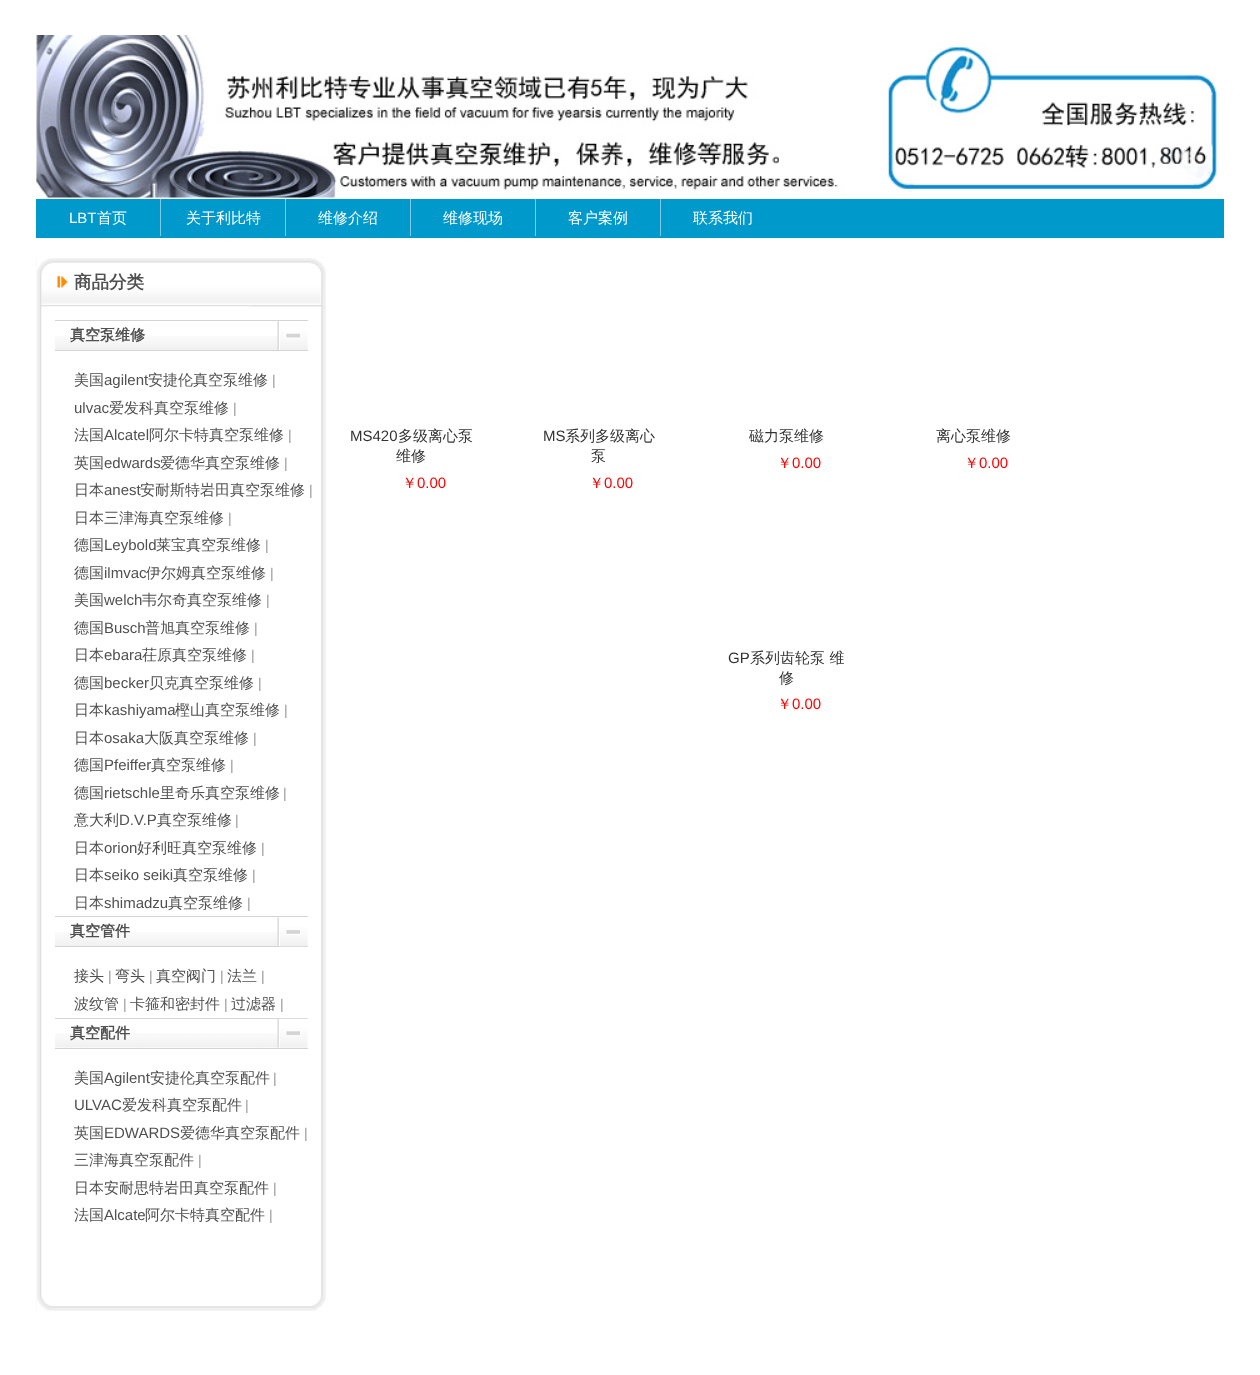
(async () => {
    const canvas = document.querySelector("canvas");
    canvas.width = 1260;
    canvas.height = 1375;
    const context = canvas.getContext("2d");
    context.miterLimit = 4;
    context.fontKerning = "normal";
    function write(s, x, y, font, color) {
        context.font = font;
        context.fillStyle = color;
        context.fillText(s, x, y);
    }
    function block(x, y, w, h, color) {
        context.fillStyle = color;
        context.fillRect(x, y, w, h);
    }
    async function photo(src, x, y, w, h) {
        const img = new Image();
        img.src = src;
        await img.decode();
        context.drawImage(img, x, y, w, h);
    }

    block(0, 0, 1260, 1375, "rgb(255, 255, 255)");
    await photo("media/1.png", 36, 35, 1181, 163);
    block(36, 199, 1188, 39, "rgb(0, 153, 204)");
    write("LBT", 69, 223, "15px Liberation Sans", "rgb(255, 255, 255)");
    write("首页", 97, 223, "500 15px WenQuanYi Zen Hei", "rgb(255, 255, 255)");
    block(160, 199, 1, 37, "rgb(121, 202, 229)");
    write("关于利比特", 186, 223, "500 15px WenQuanYi Zen Hei", "rgb(255, 255, 255)");
    block(285, 199, 1, 37, "rgb(121, 202, 229)");
    write("维修介绍", 318, 223, "500 15px WenQuanYi Zen Hei", "rgb(255, 255, 255)");
    block(410, 199, 1, 37, "rgb(121, 202, 229)");
    write("维修现场", 443, 223, "500 15px WenQuanYi Zen Hei", "rgb(255, 255, 255)");
    block(535, 199, 1, 37, "rgb(121, 202, 229)");
    write("客户案例", 568, 223, "500 15px WenQuanYi Zen Hei", "rgb(255, 255, 255)");
    block(660, 199, 1, 37, "rgb(121, 202, 229)");
    write("联系我们", 693, 223, "500 15px WenQuanYi Zen Hei", "rgb(255, 255, 255)");
    await photo("media/2.png", 36, 257, 6, 1054);
    await photo("media/3.png", 321, 257, 5, 1040);
    await photo("media/4.png", 37, 258, 289, 49);
    await photo("media/5.png", 57, 276, 11, 12);
    write("商品分类", 74, 288, "bold 17.5px WenQuanYi Zen Hei", "rgb(80, 80, 80)");
    await photo("media/6.png", 251, 258, 75, 49);
    await photo("media/7.png", 55, 336, 253, 14);
    block(55, 320, 253, 1, "rgb(212, 212, 212)");
    block(55, 350, 253, 1, "rgb(212, 212, 212)");
    write("真空泵维修", 70, 340, "bold 15px WenQuanYi Zen Hei", "rgb(80, 80, 80)");
    await photo("media/8.png", 277, 321, 31, 29);
    write("美国", 74, 385, "500 15px WenQuanYi Zen Hei", "rgb(80, 80, 80)");
    write("agilent", 104, 385, "15px Liberation Sans", "rgb(80, 80, 80)");
    write("安捷伦真空泵维修", 148, 385, "500 15px WenQuanYi Zen Hei", "rgb(80, 80, 80)");
    write("|", 272, 385, "14px Liberation Sans", "rgb(153, 153, 153)");
    write("ulvac", 74, 413, "15px Liberation Sans", "rgb(80, 80, 80)");
    write("爱发科真空泵维修", 109, 413, "500 15px WenQuanYi Zen Hei", "rgb(80, 80, 80)");
    write("|", 233, 413, "14px Liberation Sans", "rgb(153, 153, 153)");
    write("法国", 74, 440, "500 15px WenQuanYi Zen Hei", "rgb(80, 80, 80)");
    write("Alcatel", 104, 440, "15px Liberation Sans", "rgb(80, 80, 80)");
    write("阿尔卡特真空泵维修", 149, 440, "500 15px WenQuanYi Zen Hei", "rgb(80, 80, 80)");
    write("|", 288, 440, "14px Liberation Sans", "rgb(153, 153, 153)");
    write("英国", 74, 468, "500 15px WenQuanYi Zen Hei", "rgb(80, 80, 80)");
    write("edwards", 104, 468, "15px Liberation Sans", "rgb(80, 80, 80)");
    write("爱德华真空泵维修", 160, 468, "500 15px WenQuanYi Zen Hei", "rgb(80, 80, 80)");
    write("|", 284, 468, "14px Liberation Sans", "rgb(153, 153, 153)");
    write("日本", 74, 495, "500 15px WenQuanYi Zen Hei", "rgb(80, 80, 80)");
    write("anest", 104, 495, "15px Liberation Sans", "rgb(80, 80, 80)");
    write("安耐斯特岩田真空泵维修", 140, 495, "500 15px WenQuanYi Zen Hei", "rgb(80, 80, 80)");
    write("|", 309, 495, "14px Liberation Sans", "rgb(153, 153, 153)");
    write("日本三津海真空泵维修", 74, 523, "500 15px WenQuanYi Zen Hei", "rgb(80, 80, 80)");
    write("|", 228, 523, "14px Liberation Sans", "rgb(153, 153, 153)");
    write("德国", 74, 550, "500 15px WenQuanYi Zen Hei", "rgb(80, 80, 80)");
    write("Leybold", 104, 550, "15px Liberation Sans", "rgb(80, 80, 80)");
    write("莱宝真空泵维修", 156, 550, "500 15px WenQuanYi Zen Hei", "rgb(80, 80, 80)");
    write("|", 265, 550, "14px Liberation Sans", "rgb(153, 153, 153)");
    write("德国", 74, 578, "500 15px WenQuanYi Zen Hei", "rgb(80, 80, 80)");
    write("ilmvac", 104, 578, "15px Liberation Sans", "rgb(80, 80, 80)");
    write("伊尔姆真空泵维修", 146, 578, "500 15px WenQuanYi Zen Hei", "rgb(80, 80, 80)");
    write("|", 270, 578, "14px Liberation Sans", "rgb(153, 153, 153)");
    write("美国", 74, 605, "500 15px WenQuanYi Zen Hei", "rgb(80, 80, 80)");
    write("welch", 104, 605, "15px Liberation Sans", "rgb(80, 80, 80)");
    write("韦尔奇真空泵维修", 142, 605, "500 15px WenQuanYi Zen Hei", "rgb(80, 80, 80)");
    write("|", 266, 605, "14px Liberation Sans", "rgb(153, 153, 153)");
    write("德国", 74, 633, "500 15px WenQuanYi Zen Hei", "rgb(80, 80, 80)");
    write("Busch", 104, 633, "15px Liberation Sans", "rgb(80, 80, 80)");
    write("普旭真空泵维修", 145, 633, "500 15px WenQuanYi Zen Hei", "rgb(80, 80, 80)");
    write("|", 254, 633, "14px Liberation Sans", "rgb(153, 153, 153)");
    write("日本", 74, 660, "500 15px WenQuanYi Zen Hei", "rgb(80, 80, 80)");
    write("ebara", 104, 660, "15px Liberation Sans", "rgb(80, 80, 80)");
    write("茌原真空泵维修", 142, 660, "500 15px WenQuanYi Zen Hei", "rgb(80, 80, 80)");
    write("|", 251, 660, "14px Liberation Sans", "rgb(153, 153, 153)");
    write("德国", 74, 688, "500 15px WenQuanYi Zen Hei", "rgb(80, 80, 80)");
    write("becker", 104, 688, "15px Liberation Sans", "rgb(80, 80, 80)");
    write("贝克真空泵维修", 149, 688, "500 15px WenQuanYi Zen Hei", "rgb(80, 80, 80)");
    write("|", 258, 688, "14px Liberation Sans", "rgb(153, 153, 153)");
    write("日本", 74, 715, "500 15px WenQuanYi Zen Hei", "rgb(80, 80, 80)");
    write("kashiyama", 104, 715, "15px Liberation Sans", "rgb(80, 80, 80)");
    write("樫山真空泵维修", 175, 715, "500 15px WenQuanYi Zen Hei", "rgb(80, 80, 80)");
    write("|", 284, 715, "14px Liberation Sans", "rgb(153, 153, 153)");
    write("日本", 74, 743, "500 15px WenQuanYi Zen Hei", "rgb(80, 80, 80)");
    write("osaka", 104, 743, "15px Liberation Sans", "rgb(80, 80, 80)");
    write("大阪真空泵维修", 144, 743, "500 15px WenQuanYi Zen Hei", "rgb(80, 80, 80)");
    write("|", 253, 743, "14px Liberation Sans", "rgb(153, 153, 153)");
    write("德国", 74, 770, "500 15px WenQuanYi Zen Hei", "rgb(80, 80, 80)");
    write("Pfeiffer", 104, 770, "15px Liberation Sans", "rgb(80, 80, 80)");
    write("真空泵维修", 151, 770, "500 15px WenQuanYi Zen Hei", "rgb(80, 80, 80)");
    write("|", 230, 770, "14px Liberation Sans", "rgb(153, 153, 153)");
    write("德国", 74, 798, "500 15px WenQuanYi Zen Hei", "rgb(80, 80, 80)");
    write("rietschle", 104, 798, "15px Liberation Sans", "rgb(80, 80, 80)");
    write("里奇乐真空泵维修", 160, 798, "500 15px WenQuanYi Zen Hei", "rgb(80, 80, 80)");
    write("|", 283, 798, "14px Liberation Sans", "rgb(153, 153, 153)");
    write("意大利", 74, 825, "500 15px WenQuanYi Zen Hei", "rgb(80, 80, 80)");
    write("D.V.P", 119, 825, "15px Liberation Sans", "rgb(80, 80, 80)");
    write("真空泵维修", 157, 825, "500 15px WenQuanYi Zen Hei", "rgb(80, 80, 80)");
    write("|", 235, 825, "14px Liberation Sans", "rgb(153, 153, 153)");
    write("日本", 74, 853, "500 15px WenQuanYi Zen Hei", "rgb(80, 80, 80)");
    write("orion", 104, 853, "15px Liberation Sans", "rgb(80, 80, 80)");
    write("好利旺真空泵维修", 137, 853, "500 15px WenQuanYi Zen Hei", "rgb(80, 80, 80)");
    write("|", 261, 853, "14px Liberation Sans", "rgb(153, 153, 153)");
    write("日本", 74, 880, "500 15px WenQuanYi Zen Hei", "rgb(80, 80, 80)");
    write("seiko seiki", 104, 880, "15px Liberation Sans", "rgb(80, 80, 80)");
    write("真空泵维修", 173, 880, "500 15px WenQuanYi Zen Hei", "rgb(80, 80, 80)");
    write("|", 252, 880, "14px Liberation Sans", "rgb(153, 153, 153)");
    write("日本", 74, 908, "500 15px WenQuanYi Zen Hei", "rgb(80, 80, 80)");
    write("shimadzu", 104, 908, "15px Liberation Sans", "rgb(80, 80, 80)");
    write("真空泵维修", 168, 908, "500 15px WenQuanYi Zen Hei", "rgb(80, 80, 80)");
    write("|", 247, 908, "14px Liberation Sans", "rgb(153, 153, 153)");
    await photo("media/9.png", 55, 932, 253, 14);
    block(55, 916, 253, 1, "rgb(212, 212, 212)");
    block(55, 946, 253, 1, "rgb(212, 212, 212)");
    write("真空管件", 70, 936, "bold 15px WenQuanYi Zen Hei", "rgb(80, 80, 80)");
    await photo("media/10.png", 277, 917, 31, 30);
    write("接头", 74, 981, "500 15px WenQuanYi Zen Hei", "rgb(80, 80, 80)");
    write("|", 108, 981, "14px Liberation Sans", "rgb(153, 153, 153)");
    write("弯头", 115, 981, "500 15px WenQuanYi Zen Hei", "rgb(80, 80, 80)");
    write("|", 149, 981, "14px Liberation Sans", "rgb(153, 153, 153)");
    write("真空阀门", 156, 981, "500 15px WenQuanYi Zen Hei", "rgb(80, 80, 80)");
    write("|", 220, 981, "14px Liberation Sans", "rgb(153, 153, 153)");
    write("法兰", 227, 981, "500 15px WenQuanYi Zen Hei", "rgb(80, 80, 80)");
    write("|", 261, 981, "14px Liberation Sans", "rgb(153, 153, 153)");
    write("波纹管", 74, 1009, "500 15px WenQuanYi Zen Hei", "rgb(80, 80, 80)");
    write("|", 123, 1009, "14px Liberation Sans", "rgb(153, 153, 153)");
    write("卡箍和密封件", 130, 1009, "500 15px WenQuanYi Zen Hei", "rgb(80, 80, 80)");
    write("|", 224, 1009, "14px Liberation Sans", "rgb(153, 153, 153)");
    write("过滤器", 231, 1009, "500 15px WenQuanYi Zen Hei", "rgb(80, 80, 80)");
    write("|", 280, 1009, "14px Liberation Sans", "rgb(153, 153, 153)");
    await photo("media/11.png", 55, 1033, 253, 15);
    block(55, 1018, 253, 1, "rgb(212, 212, 212)");
    block(55, 1048, 253, 1, "rgb(212, 212, 212)");
    write("真空配件", 70, 1038, "bold 15px WenQuanYi Zen Hei", "rgb(80, 80, 80)");
    await photo("media/12.png", 277, 1018, 31, 30);
    write("美国", 74, 1083, "500 15px WenQuanYi Zen Hei", "rgb(80, 80, 80)");
    write("Agilent", 104, 1083, "15px Liberation Sans", "rgb(80, 80, 80)");
    write("安捷伦真空泵配件", 150, 1083, "500 15px WenQuanYi Zen Hei", "rgb(80, 80, 80)");
    write("|", 273, 1083, "14px Liberation Sans", "rgb(153, 153, 153)");
    write("ULVAC", 74, 1110, "15px Liberation Sans", "rgb(80, 80, 80)");
    write("爱发科真空泵配件", 122, 1110, "500 15px WenQuanYi Zen Hei", "rgb(80, 80, 80)");
    write("|", 245, 1110, "14px Liberation Sans", "rgb(153, 153, 153)");
    write("英国", 74, 1138, "500 15px WenQuanYi Zen Hei", "rgb(80, 80, 80)");
    write("EDWARDS", 104, 1138, "15px Liberation Sans", "rgb(80, 80, 80)");
    write("爱德华真空泵配件", 180, 1138, "500 15px WenQuanYi Zen Hei", "rgb(80, 80, 80)");
    write("|", 304, 1138, "14px Liberation Sans", "rgb(153, 153, 153)");
    write("三津海真空泵配件", 74, 1165, "500 15px WenQuanYi Zen Hei", "rgb(80, 80, 80)");
    write("|", 198, 1165, "14px Liberation Sans", "rgb(153, 153, 153)");
    write("日本安耐思特岩田真空泵配件", 74, 1193, "500 15px WenQuanYi Zen Hei", "rgb(80, 80, 80)");
    write("|", 273, 1193, "14px Liberation Sans", "rgb(153, 153, 153)");
    write("法国", 74, 1220, "500 15px WenQuanYi Zen Hei", "rgb(80, 80, 80)");
    write("Alcate", 104, 1220, "15px Liberation Sans", "rgb(80, 80, 80)");
    write("阿尔卡特真空配件", 145, 1220, "500 15px WenQuanYi Zen Hei", "rgb(80, 80, 80)");
    write("|", 269, 1220, "14px Liberation Sans", "rgb(153, 153, 153)");
    await photo("media/13.png", 37, 1296, 289, 15);
    await photo("media/14.png", 312, 1296, 14, 15);
    write("MS420", 350, 441, "15px Liberation Sans", "rgb(51, 51, 51)");
    write("多级离心泵", 398, 441, "500 15px WenQuanYi Zen Hei", "rgb(51, 51, 51)");
    write("维修", 396, 461, "500 15px WenQuanYi Zen Hei", "rgb(51, 51, 51)");
    write("￥", 402, 488, "500 15px WenQuanYi Zen Hei", "rgb(255, 0, 0)");
    write("0.00", 417, 488, "15px Liberation Sans", "rgb(255, 0, 0)");
    write("MS", 543, 441, "15px Liberation Sans", "rgb(51, 51, 51)");
    write("系列多级离心", 565, 441, "500 15px WenQuanYi Zen Hei", "rgb(51, 51, 51)");
    write("泵", 591, 461, "500 15px WenQuanYi Zen Hei", "rgb(51, 51, 51)");
    write("￥", 589, 488, "500 15px WenQuanYi Zen Hei", "rgb(255, 0, 0)");
    write("0.00", 604, 488, "15px Liberation Sans", "rgb(255, 0, 0)");
    write("磁力泵维修", 749, 441, "500 15px WenQuanYi Zen Hei", "rgb(51, 51, 51)");
    write("￥", 777, 468, "500 15px WenQuanYi Zen Hei", "rgb(255, 0, 0)");
    write("0.00", 792, 468, "15px Liberation Sans", "rgb(255, 0, 0)");
    write("离心泵维修", 936, 441, "500 15px WenQuanYi Zen Hei", "rgb(51, 51, 51)");
    write("￥", 964, 468, "500 15px WenQuanYi Zen Hei", "rgb(255, 0, 0)");
    write("0.00", 979, 468, "15px Liberation Sans", "rgb(255, 0, 0)");
    write("GP", 728, 663, "15px Liberation Sans", "rgb(51, 51, 51)");
    write("系列齿轮泵 维", 750, 663, "500 15px WenQuanYi Zen Hei", "rgb(51, 51, 51)");
    write("修", 779, 683, "500 15px WenQuanYi Zen Hei", "rgb(51, 51, 51)");
    write("￥", 777, 709, "500 15px WenQuanYi Zen Hei", "rgb(255, 0, 0)");
    write("0.00", 792, 709, "15px Liberation Sans", "rgb(255, 0, 0)");
})();
